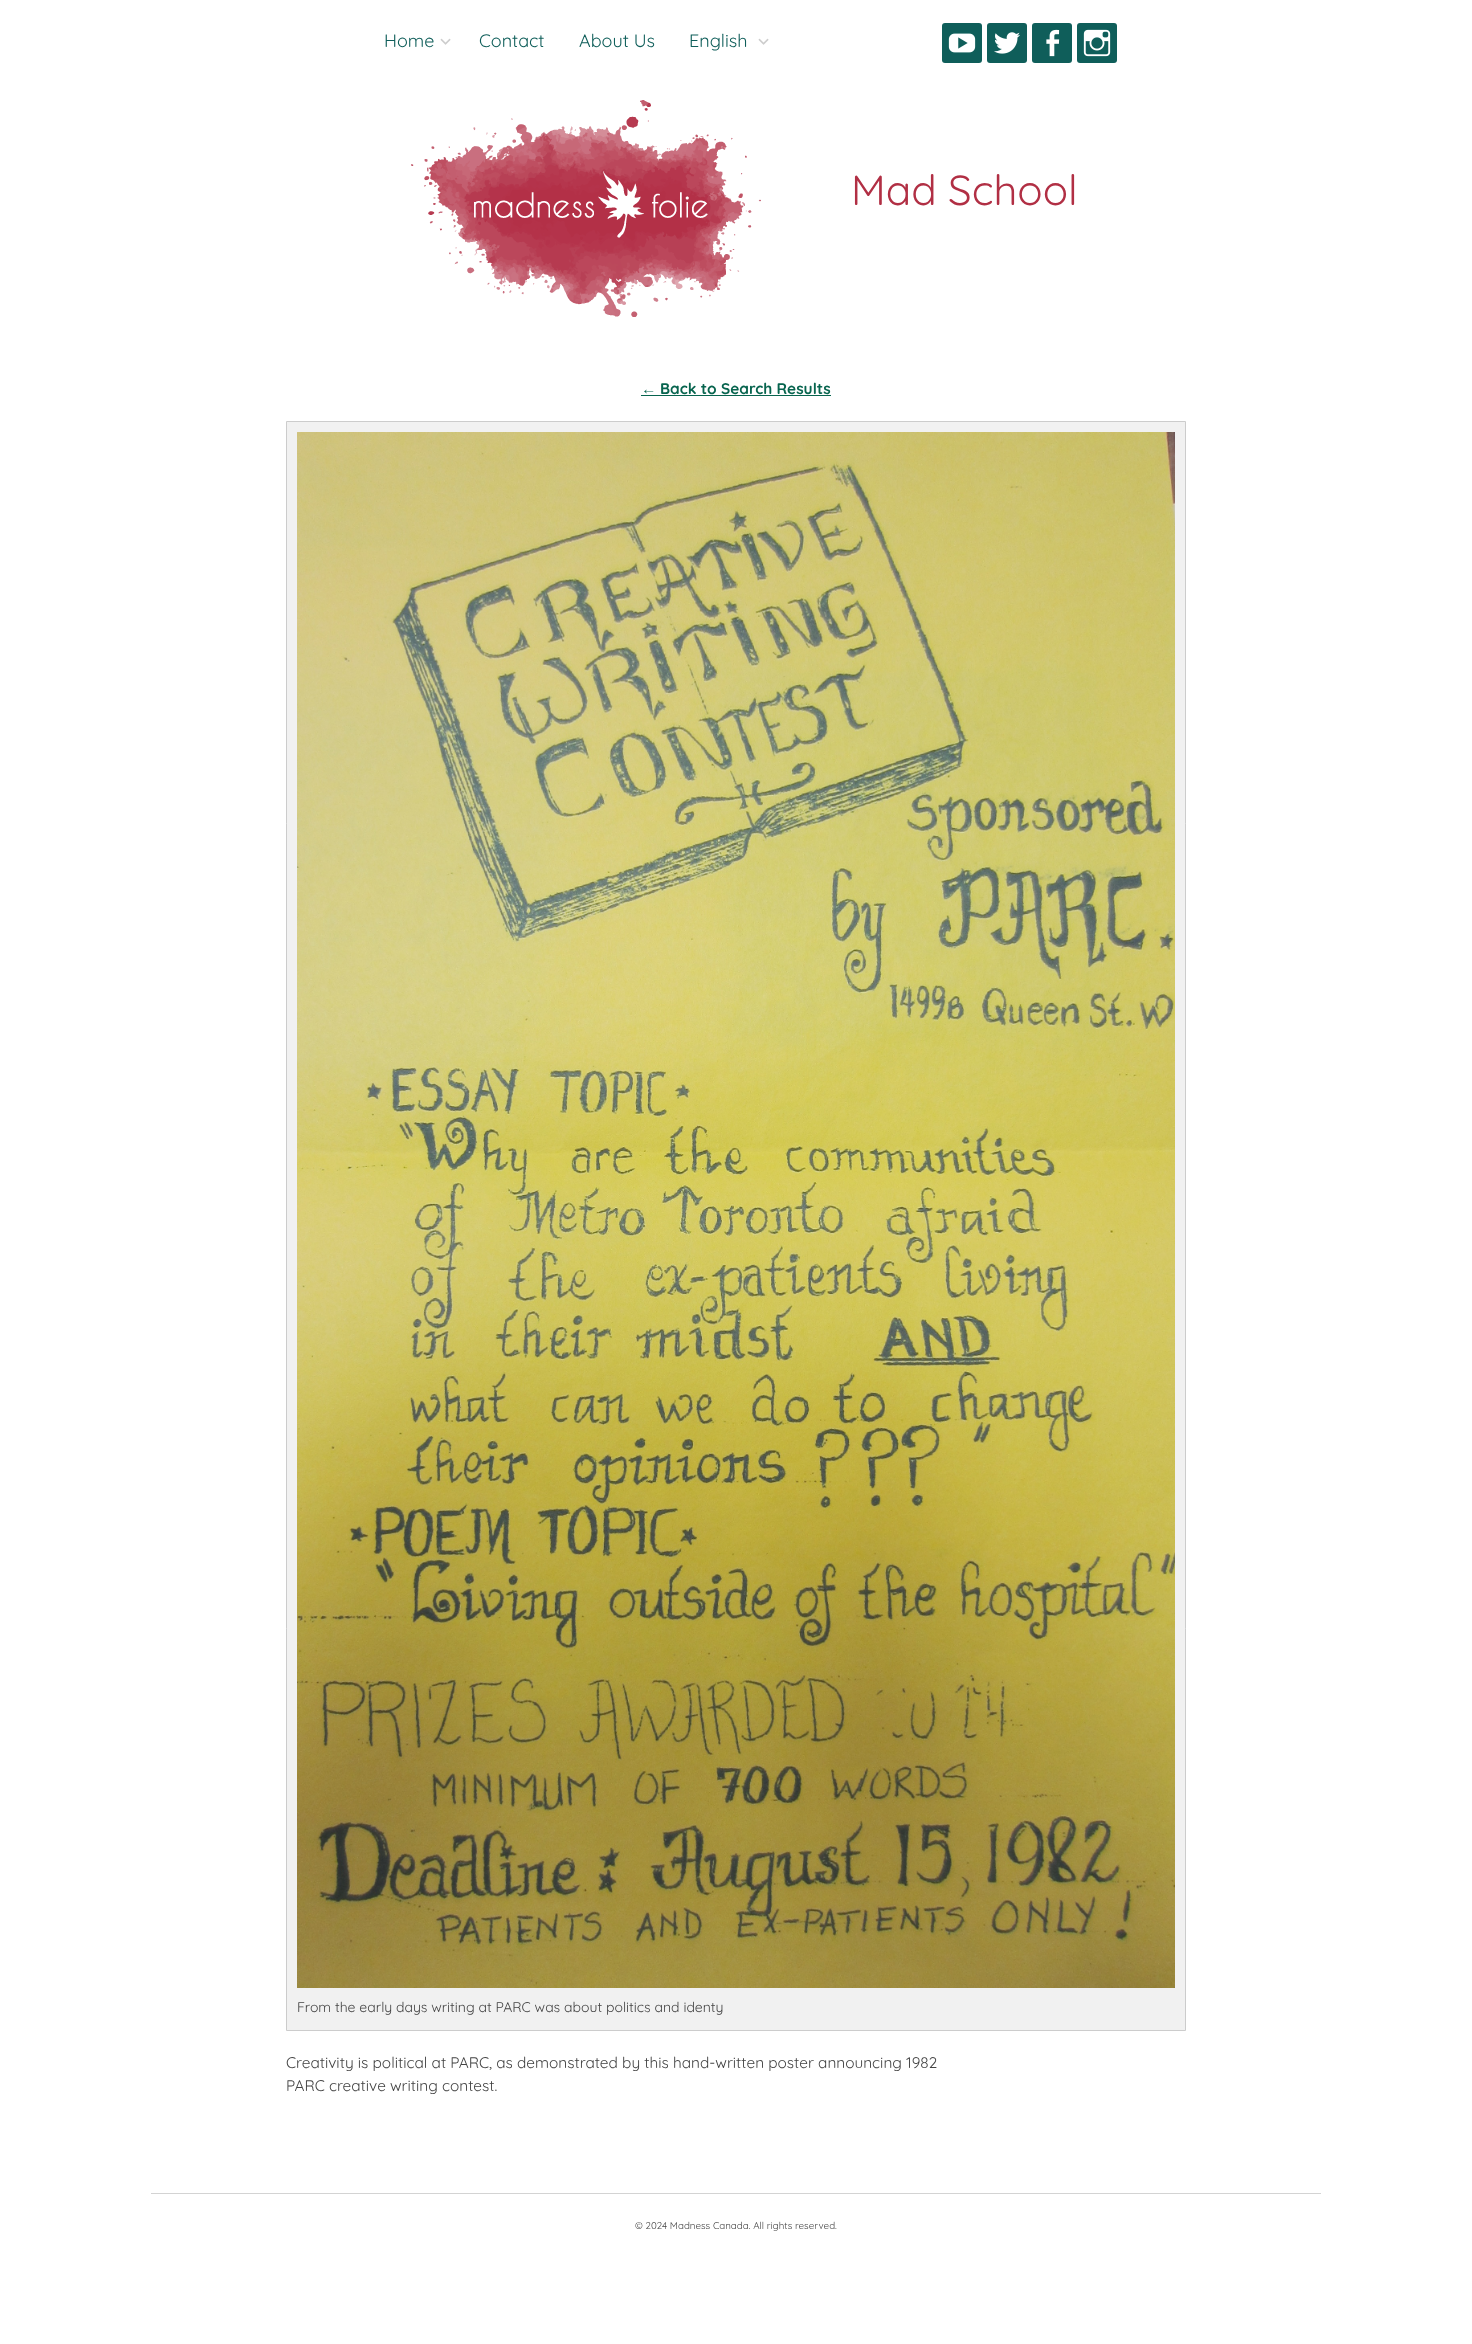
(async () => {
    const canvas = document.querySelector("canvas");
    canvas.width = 1472;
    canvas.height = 2344;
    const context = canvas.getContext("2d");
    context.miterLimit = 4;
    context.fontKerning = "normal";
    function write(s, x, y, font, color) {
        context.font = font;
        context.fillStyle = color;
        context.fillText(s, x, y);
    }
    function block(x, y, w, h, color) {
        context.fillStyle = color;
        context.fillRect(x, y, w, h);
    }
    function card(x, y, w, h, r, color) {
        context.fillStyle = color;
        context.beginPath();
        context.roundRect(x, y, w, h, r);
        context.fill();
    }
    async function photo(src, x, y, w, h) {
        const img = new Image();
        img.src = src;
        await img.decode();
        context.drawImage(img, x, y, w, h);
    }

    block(0, 0, 1472, 2344, "rgb(255, 255, 255)");
    write("Home", 384, 47, "18px Quicksand", "rgb(15, 94, 90)");
    await photo("media/1.png", 440, 38, 11, 7);
    write("Contact", 479, 47, "18px Quicksand", "rgb(15, 94, 90)");
    write("About Us", 579, 47, "18px Quicksand", "rgb(15, 94, 90)");
    write("English", 689, 47, "18px Quicksand", "rgb(15, 94, 90)");
    await photo("media/1.png", 758, 38, 11, 7);
    card(942, 23, 40, 40, 3, "rgb(15, 94, 90)");
    await photo("media/2.png", 948, 33, 28, 20);
    card(987, 23, 40, 40, 3, "rgb(15, 94, 90)");
    await photo("media/3.png", 994, 32, 26, 22);
    card(1032, 23, 40, 40, 3, "rgb(15, 94, 90)");
    await photo("media/4.png", 1046, 29, 14, 28);
    card(1077, 23, 40, 40, 3, "rgb(15, 94, 90)");
    await photo("media/5.png", 1083, 29, 28, 28);
    await photo("media/6.png", 411, 100, 350, 217);
    write("Mad School", 851, 205, "42px Quicksand", "rgb(177, 47, 68)");
    write("←", 641, 394, "bold 15.4px Liberation Sans", "rgb(7, 100, 78)");
    block(641, 395, 190, 1, "rgb(7, 100, 78)");
    write("Back to Search Results", 660, 394, "bold 15.4px Quicksand", "rgb(7, 100, 78)");
    context.fillStyle = "rgb(241, 241, 241)";
    context.beginPath();
    context.rect(286.5, 421.5, 899, 1609);
    context.fill();
    context.strokeStyle = "rgb(204, 204, 204)";
    context.stroke();
    await photo("media/7.png", 297, 432, 878, 1556);
    write("From the early days writing at PARC was about politics and identy", 297, 2012, "14px Quicksand", "rgb(68, 68, 68)");
    write("Creativity is political at PARC, as demonstrated by this hand-written poster announcing 1982", 286, 2068, "15.4px Quicksand", "rgb(68, 68, 68)");
    write("PARC creative writing contest.", 286, 2091, "15.4px Quicksand", "rgb(68, 68, 68)");
    block(151, 2193, 1170, 1, "rgb(211, 211, 211)");
    write("© 2024 Madness Canada. All rights reserved.", 635, 2229, "9.8px Quicksand", "rgb(68, 68, 68)");
})();
